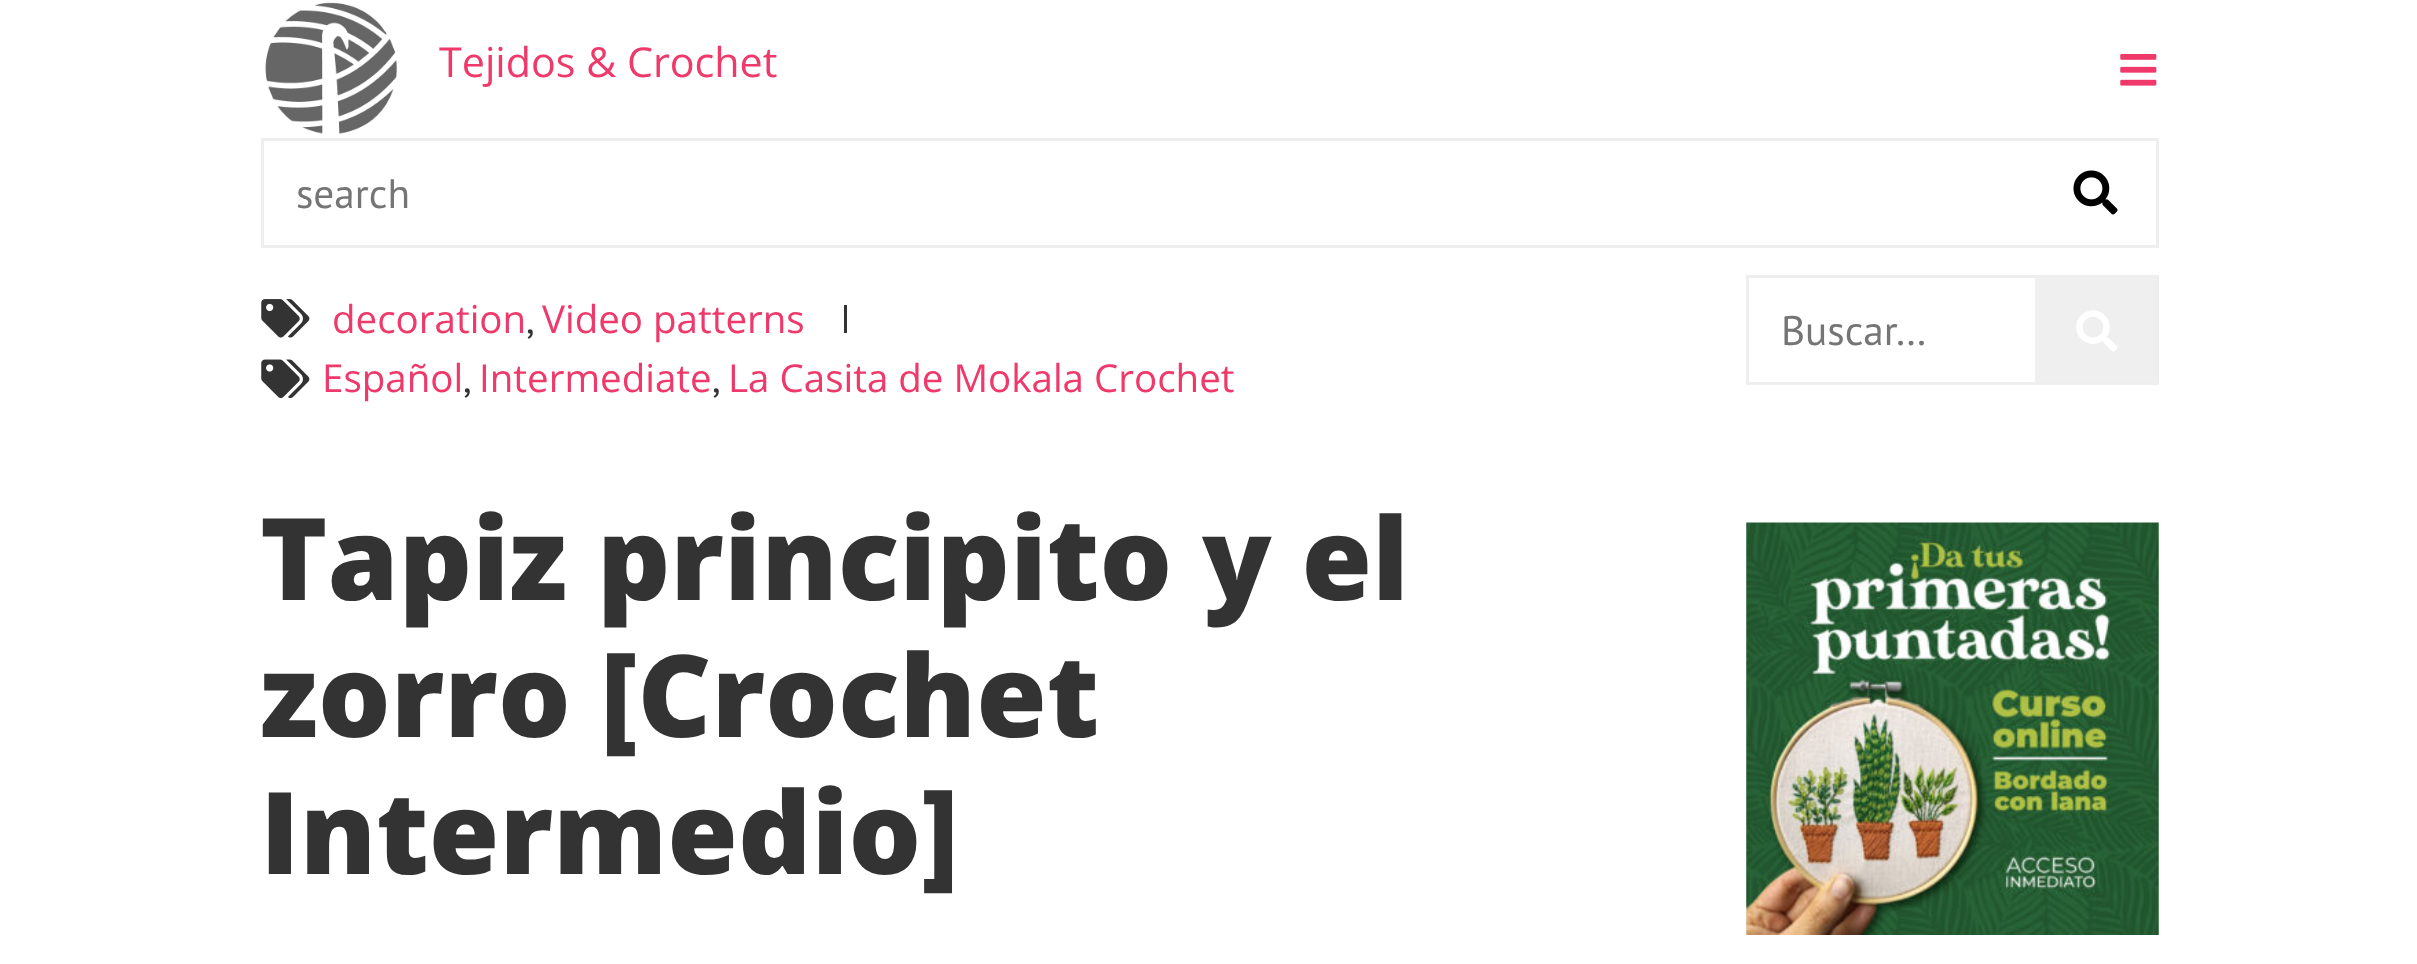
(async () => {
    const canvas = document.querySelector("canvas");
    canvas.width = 2417;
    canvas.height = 964;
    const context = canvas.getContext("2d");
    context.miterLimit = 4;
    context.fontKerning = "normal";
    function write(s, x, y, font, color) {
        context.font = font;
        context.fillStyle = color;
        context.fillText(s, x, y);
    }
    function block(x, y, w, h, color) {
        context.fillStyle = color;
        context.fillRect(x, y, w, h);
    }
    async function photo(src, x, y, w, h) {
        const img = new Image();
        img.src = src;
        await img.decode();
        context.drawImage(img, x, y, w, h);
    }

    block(0, 0, 2417, 964, "rgb(255, 255, 255)");
    await photo("media/1.png", 265, 2, 133, 132);
    write("Tejidos & Crochet", 439, 77, "41.25px Open Sans", "rgb(238, 57, 106)");
    await photo("media/2.png", 2120, 54, 37, 32);
    context.strokeStyle = "rgb(238, 238, 238)";
    context.lineWidth = 3;
    context.strokeRect(262.5, 139.5, 1895, 107);
    write("search", 296, 208, "41.25px PT Sans", "rgb(117, 117, 117)");
    await photo("media/3.png", 2073, 170, 45, 45);
    await photo("media/4.png", 261, 299, 49, 39);
    write("decoration", 332, 333, "38.5px Open Sans", "rgb(238, 57, 106)");
    write("Video patterns", 542, 333, "38.5px Open Sans", "rgb(238, 57, 106)");
    block(844, 305, 3, 28, "rgb(51, 51, 51)");
    write(",", 526, 333, "38.5px PT Sans", "rgb(51, 51, 51)");
    await photo("media/5.png", 261, 359, 49, 39);
    write("Español", 322, 392, "38.5px Open Sans", "rgb(238, 57, 106)");
    write(",", 463, 392, "38.5px PT Sans", "rgb(51, 51, 51)");
    write("Intermediate", 479, 392, "38.5px Open Sans", "rgb(238, 57, 106)");
    write(",", 712, 392, "38.5px PT Sans", "rgb(51, 51, 51)");
    write("La Casita de Mokala Crochet", 728, 392, "38.5px Open Sans", "rgb(238, 57, 106)");
    write("Tapiz principito y el", 260, 600, "800 114.25px Open Sans", "rgb(51, 51, 51)");
    write("zorro [Crochet", 260, 737, "800 114.25px Open Sans", "rgb(51, 51, 51)");
    write("Intermedio]", 260, 874, "800 114.25px Open Sans", "rgb(51, 51, 51)");
    context.strokeRect(1747.5, 276.5, 410, 107);
    write("Buscar…", 1781, 345, "41.25px PT Sans", "rgb(117, 117, 117)");
    block(2035, 278, 121, 104, "rgb(239, 239, 239)");
    await photo("media/6.png", 2076, 310, 42, 42);
    await photo("media/7.png", 1746, 522, 413, 413);
})();
